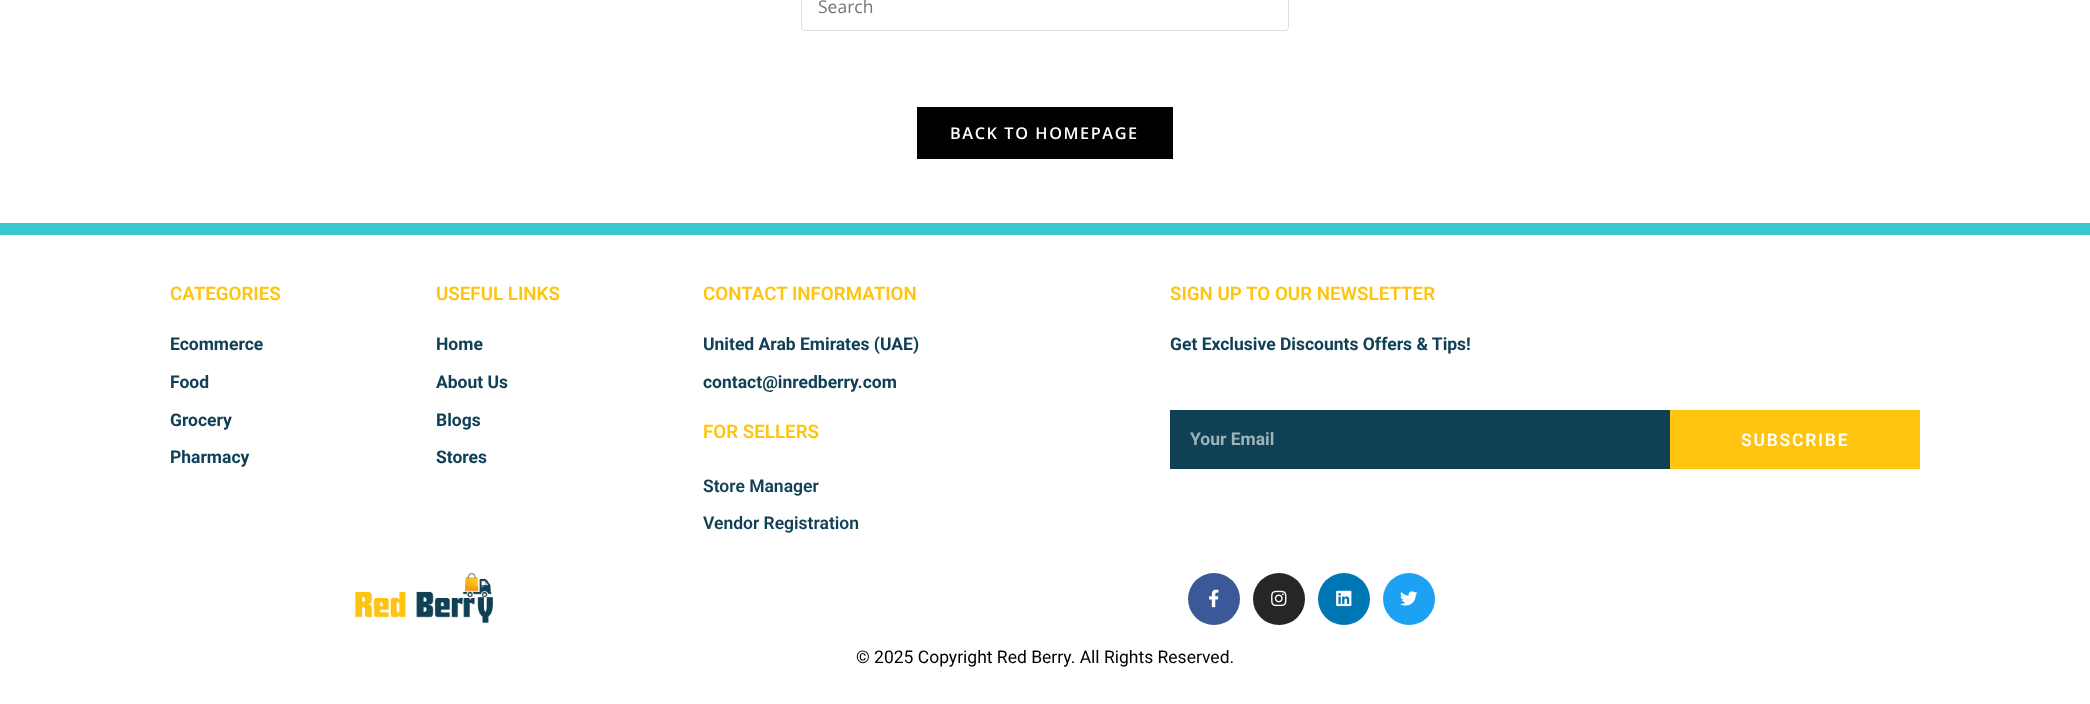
(async () => {
    const canvas = document.querySelector("canvas");
    canvas.width = 2090;
    canvas.height = 704;
    const context = canvas.getContext("2d");
    context.miterLimit = 4;
    context.fontKerning = "normal";
    function write(s, x, y, font, color) {
        context.font = font;
        context.fillStyle = color;
        context.fillText(s, x, y);
    }
    function block(x, y, w, h, color) {
        context.fillStyle = color;
        context.fillRect(x, y, w, h);
    }
    async function photo(src, x, y, w, h) {
        const img = new Image();
        img.src = src;
        await img.decode();
        context.drawImage(img, x, y, w, h);
    }

    block(0, 0, 2090, 704, "rgb(255, 255, 255)");
    context.beginPath();
    context.roundRect(801.5, -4.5, 487, 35, 3.5);
    context.strokeStyle = "rgb(221, 221, 221)";
    context.stroke();
    write("Search", 818, 13, "17.5px Open Sans", "rgb(117, 117, 117)");
    block(917, 107, 256, 52, "rgb(0, 0, 0)");
    context.letterSpacing = "1.6px";
    write("BACK TO HOMEPAGE", 950, 139, "600 16.25px Open Sans", "rgb(255, 255, 255)");
    block(0, 223, 2090, 12, "rgb(57, 199, 206)");
    context.letterSpacing = "0px";
    write("CATEGORIES", 170, 300, "600 18.75px Roboto", "rgb(255, 196, 15)");
    write("Ecommerce", 170, 350, "bold 17.5px Roboto", "rgb(15, 64, 85)");
    write("Food", 170, 388, "bold 17.5px Roboto", "rgb(15, 64, 85)");
    write("Grocery", 170, 426, "bold 17.5px Roboto", "rgb(15, 64, 85)");
    write("Pharmacy", 170, 463, "bold 17.5px Roboto", "rgb(15, 64, 85)");
    write("USEFUL LINKS", 436, 300, "600 18.75px Roboto", "rgb(255, 196, 15)");
    write("Home", 436, 350, "bold 17.5px Roboto", "rgb(15, 64, 85)");
    write("About Us", 436, 388, "bold 17.5px Roboto", "rgb(15, 64, 85)");
    write("Blogs", 436, 426, "bold 17.5px Roboto", "rgb(15, 64, 85)");
    write("Stores", 436, 463, "bold 17.5px Roboto", "rgb(15, 64, 85)");
    write("CONTACT INFORMATION", 703, 300, "600 18.75px Roboto", "rgb(255, 196, 15)");
    write("United Arab Emirates (UAE)", 703, 350, "bold 17.5px Roboto", "rgb(15, 64, 85)");
    write("contact@inredberry.com", 703, 388, "bold 17.5px Roboto", "rgb(15, 64, 85)");
    write("FOR SELLERS", 703, 438, "600 18.75px Roboto", "rgb(255, 196, 15)");
    write("Store Manager", 703, 492, "600 17.5px Roboto", "rgb(15, 64, 85)");
    write("Vendor Registration", 703, 529, "600 17.5px Roboto", "rgb(15, 64, 85)");
    write("SIGN UP TO OUR NEWSLETTER", 1170, 300, "600 18.75px Roboto", "rgb(255, 196, 15)");
    write("Get Exclusive Discounts Offers & Tips!", 1170, 350, "bold 17.5px Roboto", "rgb(15, 64, 85)");
    block(1170, 410, 500, 59, "rgb(15, 64, 85)");
    write("Your Email", 1190, 445, "bold 17.5px Roboto", "rgb(159, 179, 187)");
    block(1670, 410, 250, 59, "rgb(255, 196, 15)");
    context.letterSpacing = "1.75px";
    write("SUBSCRIBE", 1741, 446, "600 17.5px Roboto", "rgb(255, 255, 255)");
    await photo("media/1.png", 354, 573, 139, 51);
    context.fillStyle = "rgb(59, 89, 152)";
    context.beginPath();
    context.arc(1214, 599, 26, 0, Math.PI * 2);
    context.fill();
    await photo("media/2.png", 1209, 589, 10, 19);
    context.fillStyle = "rgb(38, 38, 38)";
    context.beginPath();
    context.arc(1279, 599, 26, 0, Math.PI * 2);
    context.fill();
    await photo("media/3.png", 1271, 590, 16, 17);
    context.fillStyle = "rgb(0, 119, 181)";
    context.beginPath();
    context.arc(1344, 599, 26, 0, Math.PI * 2);
    context.fill();
    await photo("media/4.png", 1336, 590, 16, 17);
    context.fillStyle = "rgb(29, 161, 242)";
    context.beginPath();
    context.arc(1409, 599, 26, 0, Math.PI * 2);
    context.fill();
    await photo("media/5.png", 1400, 591, 18, 15);
    context.letterSpacing = "0px";
    write("© 2025 Copyright Red Berry. All Rights Reserved.", 856, 663, "17.5px Roboto", "rgb(0, 0, 0)");
})();
